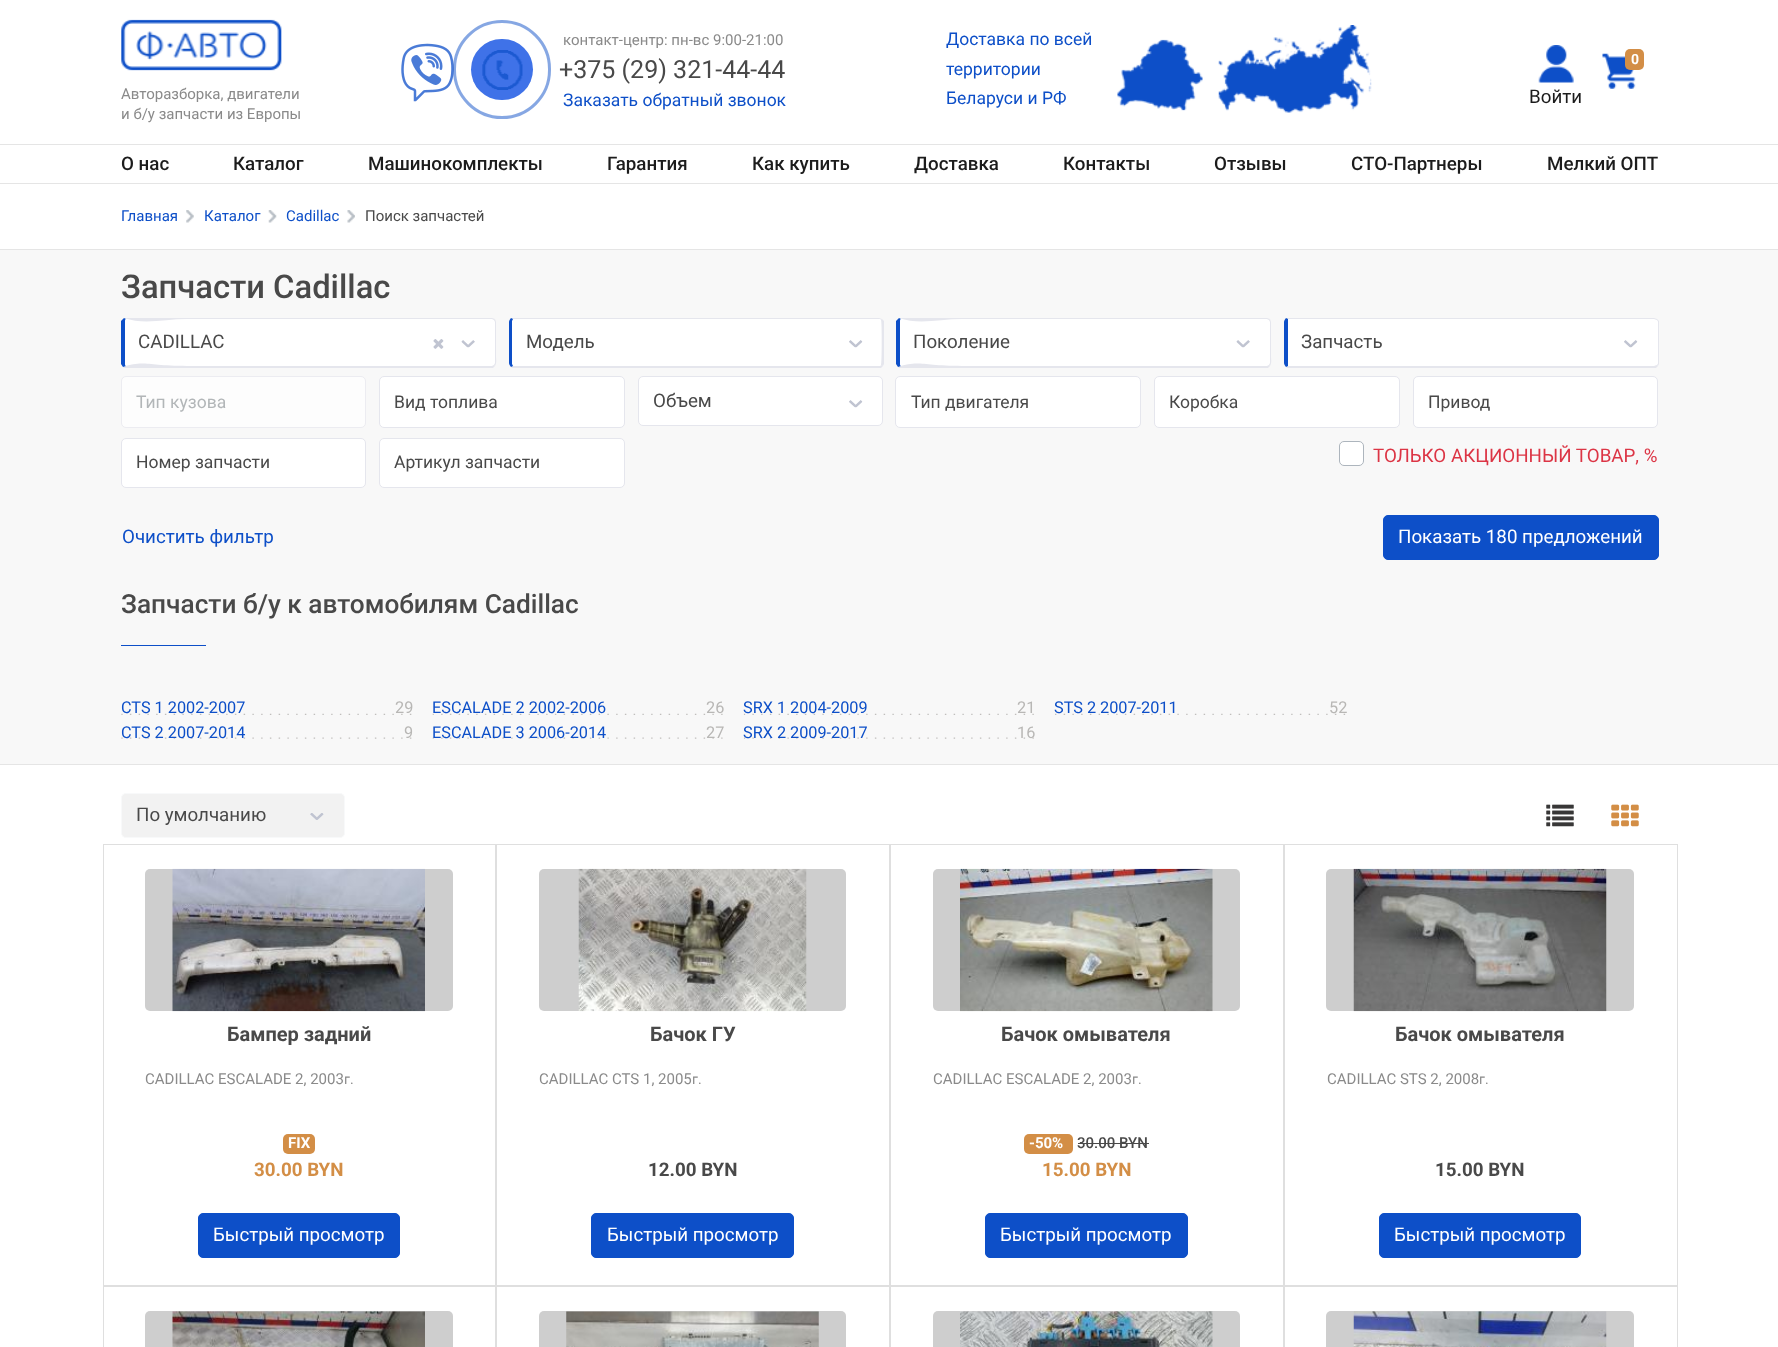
(async () => {
    const canvas = document.querySelector("canvas");
    canvas.width = 1778;
    canvas.height = 1347;
    const context = canvas.getContext("2d");
    context.miterLimit = 4;
    context.fontKerning = "normal";
    function write(s, x, y, font, color) {
        context.font = font;
        context.fillStyle = color;
        context.fillText(s, x, y);
    }
    function block(x, y, w, h, color) {
        context.fillStyle = color;
        context.fillRect(x, y, w, h);
    }
    function card(x, y, w, h, r, color) {
        context.fillStyle = color;
        context.beginPath();
        context.roundRect(x, y, w, h, r);
        context.fill();
    }
    async function photo(src, x, y, w, h) {
        const img = new Image();
        img.src = src;
        await img.decode();
        context.drawImage(img, x, y, w, h);
    }

    block(0, 0, 1778, 1347, "rgb(255, 255, 255)");
    block(0, 183, 1778, 1, "rgb(229, 229, 229)");
    await photo("media/1.png", 401, 43, 53, 59);
    context.beginPath();
    context.roundRect(454.5, 21.5, 95, 96, 47.5);
    context.strokeStyle = "rgba(13, 79, 200, 0.5)";
    context.lineWidth = 3;
    context.stroke();
    card(471, 39, 62, 61, 30.5, "rgb(63, 114, 232)");
    await photo("media/2.png", 482, 50, 41, 40);
    write("контакт-центр: пн-вс 9:00-21:00", 563, 45, "15px Roboto", "rgb(138, 138, 138)");
    write("+375 (29) 321-44-44", 559, 78, "25px Roboto", "rgb(73, 73, 73)");
    write("Заказать обратный звонок", 563, 106, "17.5px Roboto", "rgb(13, 79, 200)");
    await photo("media/3.png", 1117, 25, 255, 88);
    write("Доставка по всей", 946, 45, "17.5px Roboto", "rgb(13, 79, 200)");
    write("территории", 946, 75, "17.5px Roboto", "rgb(13, 79, 200)");
    write("Беларуси и РФ", 946, 104, "17.5px Roboto", "rgb(13, 79, 200)");
    await photo("media/4.png", 1602, 53, 34, 36);
    card(1625, 49, 19, 21, 5, "rgb(211, 142, 70)");
    write("0", 1631, 64, "bold 14px Roboto", "rgb(255, 255, 255)");
    await photo("media/5.png", 121, 19, 161, 52);
    write("Авторазборка, двигатели", 121, 99, "15px Roboto", "rgb(138, 138, 138)");
    write("и б/у запчасти из Европы", 121, 119, "15px Roboto", "rgb(138, 138, 138)");
    await photo("media/6.png", 1538, 45, 36, 38);
    write("Войти", 1529, 103, "18.75px Roboto", "rgb(28, 28, 28)");
    block(0, 144, 1778, 1, "rgb(229, 229, 229)");
    write("О нас", 121, 170, "500 18.75px Roboto", "rgb(28, 28, 28)");
    write("Каталог", 233, 170, "500 18.75px Roboto", "rgb(28, 28, 28)");
    write("Машинокомплекты", 368, 170, "500 18.75px Roboto", "rgb(28, 28, 28)");
    write("Гарантия", 607, 170, "500 18.75px Roboto", "rgb(28, 28, 28)");
    write("Как купить", 752, 170, "500 18.75px Roboto", "rgb(28, 28, 28)");
    write("Доставка", 914, 170, "500 18.75px Roboto", "rgb(28, 28, 28)");
    write("Контакты", 1063, 170, "500 18.75px Roboto", "rgb(28, 28, 28)");
    write("Отзывы", 1214, 170, "500 18.75px Roboto", "rgb(28, 28, 28)");
    write("СТО-Партнеры", 1351, 170, "500 18.75px Roboto", "rgb(28, 28, 28)");
    write("Мелкий ОПТ", 1547, 170, "500 18.75px Roboto", "rgb(28, 28, 28)");
    write("Главная", 121, 221, "15px Roboto", "rgb(13, 79, 200)");
    await photo("media/7.png", 186, 210, 8, 13);
    write("Каталог", 204, 221, "15px Roboto", "rgb(13, 79, 200)");
    await photo("media/8.png", 268, 210, 9, 13);
    write("Cadillac", 286, 221, "15px Roboto", "rgb(13, 79, 200)");
    await photo("media/9.png", 347, 210, 8, 13);
    write("Поиск запчастей", 365, 221, "15px Roboto", "rgb(73, 73, 73)");
    block(0, 250, 1778, 514, "rgb(248, 248, 248)");
    block(0, 249, 1778, 1, "rgb(229, 229, 229)");
    block(0, 764, 1778, 1, "rgb(229, 229, 229)");
    write("Запчасти Cadillac", 121, 298, "500 32.75px Roboto", "rgb(73, 73, 73)");
    context.fillStyle = "rgb(255, 255, 255)";
    context.beginPath();
    context.moveTo(126, 319);
    context.lineTo(492, 319);
    context.bezierCurveTo(493, 319, 495, 320, 495, 322);
    context.lineTo(495, 363);
    context.bezierCurveTo(495, 365, 493, 366, 492, 366);
    context.lineTo(126, 366);
    context.bezierCurveTo(125, 366, 125, 365, 125, 363);
    context.lineTo(125, 322);
    context.bezierCurveTo(125, 320, 125, 319, 126, 319);
    context.closePath();
    context.fill();
    context.fillStyle = "rgb(229, 230, 237)";
    context.beginPath();
    context.moveTo(126, 318);
    context.lineTo(124, 318);
    context.bezierCurveTo(144, 325, 165, 319, 187, 319);
    context.lineTo(492, 319);
    context.lineTo(494, 320);
    context.lineTo(495, 319);
    context.lineTo(492, 318);
    context.closePath();
    context.fill();
    context.beginPath();
    context.moveTo(495, 319);
    context.lineTo(496, 322);
    context.lineTo(496, 356);
    context.bezierCurveTo(496, 359, 497, 363, 495, 366);
    context.lineTo(494, 365);
    context.lineTo(495, 363);
    context.lineTo(495, 322);
    context.lineTo(494, 320);
    context.closePath();
    context.fill();
    context.beginPath();
    context.moveTo(124, 368);
    context.lineTo(123, 367);
    context.bezierCurveTo(144, 360, 147, 366, 187, 366);
    context.lineTo(492, 366);
    context.lineTo(494, 365);
    context.lineTo(495, 366);
    context.lineTo(493, 368);
    context.closePath();
    context.fill();
    context.fillStyle = "rgb(13, 79, 200)";
    context.beginPath();
    context.moveTo(121, 321);
    context.bezierCurveTo(122, 320, 123, 319, 124, 318);
    context.lineTo(126, 319);
    context.bezierCurveTo(125, 319, 125, 320, 125, 322);
    context.lineTo(125, 363);
    context.bezierCurveTo(125, 365, 125, 366, 126, 366);
    context.lineTo(123, 367);
    context.lineTo(121, 364);
    context.closePath();
    context.fill();
    write("CADILLAC", 138, 348, "18.75px Roboto", "rgb(73, 73, 73)");
    await photo("media/10.png", 461, 340, 14, 8);
    await photo("media/11.png", 433, 339, 11, 10);
    context.fillStyle = "rgb(255, 255, 255)";
    context.beginPath();
    context.moveTo(513, 319);
    context.lineTo(879, 319);
    context.bezierCurveTo(881, 319, 882, 320, 882, 322);
    context.lineTo(882, 363);
    context.bezierCurveTo(882, 365, 881, 366, 879, 366);
    context.lineTo(513, 366);
    context.bezierCurveTo(513, 366, 512, 365, 512, 363);
    context.lineTo(512, 322);
    context.bezierCurveTo(512, 320, 513, 319, 513, 319);
    context.closePath();
    context.fill();
    context.fillStyle = "rgb(229, 230, 237)";
    context.beginPath();
    context.moveTo(513, 318);
    context.lineTo(511, 318);
    context.lineTo(513, 319);
    context.lineTo(879, 319);
    context.bezierCurveTo(880, 319, 881, 319, 881, 320);
    context.lineTo(882, 319);
    context.lineTo(879, 318);
    context.closePath();
    context.fill();
    context.beginPath();
    context.moveTo(882, 319);
    context.lineTo(884, 321);
    context.lineTo(884, 364);
    context.lineTo(883, 366);
    context.lineTo(881, 365);
    context.bezierCurveTo(882, 364, 882, 321, 881, 320);
    context.closePath();
    context.fill();
    context.beginPath();
    context.moveTo(512, 368);
    context.lineTo(511, 367);
    context.lineTo(513, 366);
    context.lineTo(879, 366);
    context.bezierCurveTo(880, 366, 881, 366, 881, 365);
    context.lineTo(883, 366);
    context.lineTo(881, 368);
    context.closePath();
    context.fill();
    context.fillStyle = "rgb(13, 79, 200)";
    context.beginPath();
    context.moveTo(513, 319);
    context.lineTo(511, 318);
    context.bezierCurveTo(510, 319, 509, 321, 509, 322);
    context.lineTo(509, 363);
    context.bezierCurveTo(509, 364, 510, 366, 511, 367);
    context.lineTo(513, 366);
    context.lineTo(512, 364);
    context.lineTo(512, 321);
    context.closePath();
    context.fill();
    write("Модель", 526, 348, "18.75px Roboto", "rgb(73, 73, 73)");
    await photo("media/12.png", 849, 340, 14, 8);
    context.fillStyle = "rgb(255, 255, 255)";
    context.beginPath();
    context.moveTo(901, 319);
    context.lineTo(1267, 319);
    context.bezierCurveTo(1268, 319, 1270, 320, 1270, 322);
    context.lineTo(1270, 363);
    context.bezierCurveTo(1270, 365, 1268, 366, 1267, 366);
    context.lineTo(901, 366);
    context.bezierCurveTo(900, 366, 900, 365, 900, 363);
    context.lineTo(900, 322);
    context.bezierCurveTo(900, 320, 900, 319, 901, 319);
    context.closePath();
    context.fill();
    context.fillStyle = "rgb(229, 230, 237)";
    context.beginPath();
    context.moveTo(901, 318);
    context.lineTo(899, 318);
    context.bezierCurveTo(919, 325, 940, 319, 962, 319);
    context.lineTo(1267, 319);
    context.lineTo(1269, 320);
    context.lineTo(1270, 319);
    context.lineTo(1267, 318);
    context.closePath();
    context.fill();
    context.beginPath();
    context.moveTo(1270, 319);
    context.lineTo(1271, 322);
    context.lineTo(1271, 356);
    context.bezierCurveTo(1271, 359, 1272, 363, 1270, 366);
    context.lineTo(1269, 365);
    context.lineTo(1270, 363);
    context.lineTo(1270, 322);
    context.lineTo(1269, 320);
    context.closePath();
    context.fill();
    context.beginPath();
    context.moveTo(899, 368);
    context.lineTo(898, 367);
    context.bezierCurveTo(919, 360, 922, 366, 962, 366);
    context.lineTo(1267, 366);
    context.lineTo(1269, 365);
    context.lineTo(1270, 366);
    context.lineTo(1268, 368);
    context.closePath();
    context.fill();
    context.fillStyle = "rgb(13, 79, 200)";
    context.beginPath();
    context.moveTo(896, 321);
    context.bezierCurveTo(897, 320, 898, 319, 899, 318);
    context.lineTo(901, 319);
    context.bezierCurveTo(900, 319, 900, 320, 900, 322);
    context.lineTo(900, 363);
    context.bezierCurveTo(900, 365, 900, 366, 901, 366);
    context.lineTo(898, 367);
    context.lineTo(896, 364);
    context.closePath();
    context.fill();
    write("Поколение", 913, 348, "18.75px Roboto", "rgb(73, 73, 73)");
    await photo("media/10.png", 1236, 340, 14, 8);
    context.fillStyle = "rgb(255, 255, 255)";
    context.beginPath();
    context.moveTo(1288, 319);
    context.lineTo(1654, 319);
    context.bezierCurveTo(1656, 319, 1658, 320, 1658, 322);
    context.lineTo(1658, 363);
    context.bezierCurveTo(1658, 365, 1656, 366, 1654, 366);
    context.lineTo(1288, 366);
    context.bezierCurveTo(1288, 366, 1288, 365, 1288, 363);
    context.lineTo(1288, 322);
    context.bezierCurveTo(1288, 320, 1288, 319, 1288, 319);
    context.closePath();
    context.fill();
    context.fillStyle = "rgb(229, 230, 237)";
    context.beginPath();
    context.moveTo(1288, 318);
    context.lineTo(1286, 318);
    context.lineTo(1288, 319);
    context.lineTo(1654, 319);
    context.lineTo(1657, 320);
    context.lineTo(1657, 319);
    context.lineTo(1654, 318);
    context.closePath();
    context.fill();
    context.beginPath();
    context.moveTo(1657, 319);
    context.lineTo(1659, 321);
    context.lineTo(1659, 364);
    context.lineTo(1658, 366);
    context.lineTo(1657, 365);
    context.bezierCurveTo(1657, 365, 1658, 364, 1658, 363);
    context.lineTo(1658, 322);
    context.bezierCurveTo(1658, 321, 1657, 320, 1657, 320);
    context.closePath();
    context.fill();
    context.beginPath();
    context.moveTo(1287, 368);
    context.lineTo(1286, 367);
    context.lineTo(1288, 366);
    context.lineTo(1654, 366);
    context.lineTo(1657, 365);
    context.lineTo(1658, 366);
    context.lineTo(1656, 368);
    context.closePath();
    context.fill();
    context.fillStyle = "rgb(13, 79, 200)";
    context.beginPath();
    context.moveTo(1288, 319);
    context.lineTo(1286, 318);
    context.bezierCurveTo(1285, 319, 1284, 321, 1284, 322);
    context.lineTo(1284, 363);
    context.bezierCurveTo(1284, 364, 1285, 366, 1286, 367);
    context.lineTo(1288, 366);
    context.closePath();
    context.fill();
    write("Запчасть", 1301, 348, "18.75px Roboto", "rgb(73, 73, 73)");
    await photo("media/12.png", 1624, 340, 14, 8);
    context.fillStyle = "rgb(253, 253, 253)";
    context.beginPath();
    context.roundRect(121.5, 376.5, 244, 51, 4.5);
    context.fill();
    context.strokeStyle = "rgb(236, 236, 241)";
    context.lineWidth = 1;
    context.stroke();
    write("Тип кузова", 136, 408, "17.5px Roboto", "rgb(178, 182, 184)");
    context.fillStyle = "rgb(255, 255, 255)";
    context.beginPath();
    context.roundRect(379.5, 376.5, 245, 51, 4.5);
    context.fill();
    context.strokeStyle = "rgb(229, 230, 237)";
    context.stroke();
    write("Вид топлива", 394, 408, "17.5px Roboto", "rgb(73, 73, 73)");
    context.fillStyle = "rgb(255, 255, 255)";
    context.beginPath();
    context.roundRect(638.5, 376.5, 244, 49, 4.5);
    context.fill();
    context.stroke();
    write("Объем", 653, 407, "18.75px Roboto", "rgb(73, 73, 73)");
    await photo("media/12.png", 849, 400, 14, 8);
    context.fillStyle = "rgb(255, 255, 255)";
    context.beginPath();
    context.roundRect(895.5, 376.5, 245, 51, 4.5);
    context.fill();
    context.stroke();
    write("Тип двигателя", 911, 408, "17.5px Roboto", "rgb(73, 73, 73)");
    context.fillStyle = "rgb(255, 255, 255)";
    context.beginPath();
    context.roundRect(1154.5, 376.5, 245, 51, 4.5);
    context.fill();
    context.stroke();
    write("Коробка", 1169, 408, "17.5px Roboto", "rgb(73, 73, 73)");
    context.fillStyle = "rgb(255, 255, 255)";
    context.beginPath();
    context.roundRect(1413.5, 376.5, 244, 51, 4.5);
    context.fill();
    context.stroke();
    write("Привод", 1428, 408, "17.5px Roboto", "rgb(73, 73, 73)");
    context.fillStyle = "rgb(255, 255, 255)";
    context.beginPath();
    context.roundRect(121.5, 438.5, 244, 49, 4.5);
    context.fill();
    context.stroke();
    write("Номер запчасти", 136, 468, "17.5px Roboto", "rgb(73, 73, 73)");
    context.fillStyle = "rgb(255, 255, 255)";
    context.beginPath();
    context.roundRect(379.5, 438.5, 245, 49, 4.5);
    context.fill();
    context.stroke();
    write("Артикул запчасти", 394, 468, "17.5px Roboto", "rgb(73, 73, 73)");
    context.fillStyle = "rgb(255, 255, 255)";
    context.beginPath();
    context.roundRect(1339.5, 441.5, 24, 24, 4.5);
    context.fill();
    context.strokeStyle = "rgb(173, 181, 189)";
    context.stroke();
    write("ТОЛЬКО АКЦИОННЫЙ ТОВАР, %", 1373, 462, "18.75px Roboto", "rgb(220, 53, 69)");
    write("Очистить фильтр", 122, 543, "18.75px Roboto", "rgb(13, 79, 200)");
    context.beginPath();
    context.roundRect(1383.5, 515.5, 275, 44, 4.5);
    context.fill();
    context.strokeStyle = "rgb(13, 79, 200)";
    context.stroke();
    write("Показать 180 предложений", 1398, 543, "18.75px Roboto", "rgb(255, 255, 255)");
    write("Запчасти б/у к автомобилям Cadillac", 121, 613, "500 26.25px Roboto", "rgb(73, 73, 73)");
    block(121, 645, 85, 1, "rgb(13, 79, 200)");
    await photo("media/13.png", 121, 713, 291, 2);
    write("CTS 1 2002-2007", 121, 713, "16.25px Roboto", "rgb(13, 79, 200)");
    write("29", 395, 713, "16.25px Roboto", "rgb(184, 183, 181)");
    await photo("media/14.png", 432, 713, 291, 2);
    write("ESCALADE 2 2002-2006", 432, 713, "16.25px Roboto", "rgb(13, 79, 200)");
    write("26", 706, 713, "16.25px Roboto", "rgb(184, 183, 181)");
    await photo("media/15.png", 743, 713, 291, 2);
    write("SRX 1 2004-2009", 743, 713, "16.25px Roboto", "rgb(13, 79, 200)");
    write("21", 1017, 713, "16.25px Roboto", "rgb(184, 183, 181)");
    await photo("media/16.png", 1055, 713, 291, 2);
    write("STS 2 2007-2011", 1054, 713, "16.25px Roboto", "rgb(13, 79, 200)");
    write("52", 1329, 713, "16.25px Roboto", "rgb(184, 183, 181)");
    await photo("media/17.png", 121, 737, 291, 2);
    write("CTS 2 2007-2014", 121, 738, "16.25px Roboto", "rgb(13, 79, 200)");
    write("9", 404, 738, "16.25px Roboto", "rgb(184, 183, 181)");
    await photo("media/18.png", 432, 737, 291, 2);
    write("ESCALADE 3 2006-2014", 432, 738, "16.25px Roboto", "rgb(13, 79, 200)");
    write("27", 706, 738, "16.25px Roboto", "rgb(184, 183, 181)");
    await photo("media/19.png", 744, 737, 290, 2);
    write("SRX 2 2009-2017", 743, 738, "16.25px Roboto", "rgb(13, 79, 200)");
    write("16", 1017, 738, "16.25px Roboto", "rgb(184, 183, 181)");
    context.fillStyle = "rgb(242, 242, 242)";
    context.beginPath();
    context.roundRect(121.5, 793.5, 223, 44, 4.5);
    context.fill();
    context.strokeStyle = "rgb(248, 249, 250)";
    context.stroke();
    write("По умолчанию", 136, 821, "18.75px Roboto", "rgb(73, 73, 73)");
    await photo("media/20.png", 310, 813, 14, 7);
    await photo("media/21.png", 1546, 804, 28, 23);
    await photo("media/22.png", 1611, 804, 28, 23);
    context.strokeStyle = "rgb(223, 223, 223)";
    context.strokeRect(103.5, 844.5, 392, 441);
    card(145, 869, 308, 142, 5, "rgb(206, 206, 206)");
    await photo("media/23.png", 172, 868, 253, 144);
    write("Бампер задний", 227, 1041, "bold 20px Roboto", "rgb(73, 73, 73)");
    write("CADILLAC ESCALADE 2, 2003", 145, 1084, "15px Roboto", "rgb(138, 138, 138)");
    write("г.", 344, 1084, "14px Roboto", "rgb(138, 138, 138)");
    card(283, 1134, 32, 20, 5, "rgb(211, 142, 70)");
    write("FIX", 288, 1148, "bold 15px Roboto", "rgb(255, 255, 255)");
    write("30.00 BYN", 254, 1176, "bold 18.75px Roboto", "rgb(211, 142, 70)");
    context.fillStyle = "rgb(13, 79, 200)";
    context.beginPath();
    context.roundRect(198.5, 1213.5, 201, 44, 4.5);
    context.fill();
    context.strokeStyle = "rgb(13, 79, 200)";
    context.stroke();
    write("Быстрый просмотр", 213, 1241, "18.75px Roboto", "rgb(255, 255, 255)");
    context.strokeStyle = "rgb(223, 223, 223)";
    context.strokeRect(496.5, 844.5, 393, 441);
    card(539, 869, 307, 142, 5, "rgb(206, 206, 206)");
    await photo("media/24.png", 578, 868, 229, 144);
    write("Бачок ГУ", 650, 1041, "bold 20px Roboto", "rgb(73, 73, 73)");
    write("CADILLAC CTS 1, 2005", 539, 1084, "15px Roboto", "rgb(138, 138, 138)");
    write("г.", 692, 1084, "14px Roboto", "rgb(138, 138, 138)");
    write("12.00 BYN", 648, 1176, "bold 18.75px Roboto", "rgb(73, 73, 73)");
    context.fillStyle = "rgb(13, 79, 200)";
    context.beginPath();
    context.roundRect(591.5, 1213.5, 202, 44, 4.5);
    context.fill();
    context.strokeStyle = "rgb(13, 79, 200)";
    context.stroke();
    write("Быстрый просмотр", 607, 1241, "18.75px Roboto", "rgb(255, 255, 255)");
    context.strokeStyle = "rgb(223, 223, 223)";
    context.strokeRect(890.5, 844.5, 393, 441);
    card(933, 869, 307, 142, 5, "rgb(206, 206, 206)");
    await photo("media/25.png", 960, 868, 253, 144);
    write("Бачок омывателя", 1001, 1041, "bold 20px Roboto", "rgb(73, 73, 73)");
    write("CADILLAC ESCALADE 2, 2003", 933, 1084, "15px Roboto", "rgb(138, 138, 138)");
    write("г.", 1132, 1084, "14px Roboto", "rgb(138, 138, 138)");
    card(1024, 1134, 49, 20, 5, "rgb(211, 142, 70)");
    write("-50%", 1029, 1148, "bold 15px Roboto", "rgb(255, 255, 255)");
    write("30.00 BYN", 1077, 1148, "500 15px Roboto", "rgb(73, 73, 73)");
    block(1078, 1143, 71, 1, "rgb(73, 73, 73)");
    write("15.00 BYN", 1042, 1176, "bold 18.75px Roboto", "rgb(211, 142, 70)");
    context.fillStyle = "rgb(13, 79, 200)";
    context.beginPath();
    context.roundRect(985.5, 1213.5, 202, 44, 4.5);
    context.fill();
    context.strokeStyle = "rgb(13, 79, 200)";
    context.stroke();
    write("Быстрый просмотр", 1000, 1241, "18.75px Roboto", "rgb(255, 255, 255)");
    context.strokeStyle = "rgb(223, 223, 223)";
    context.strokeRect(1284.5, 844.5, 393, 441);
    card(1326, 869, 308, 142, 5, "rgb(206, 206, 206)");
    await photo("media/26.png", 1353, 868, 254, 144);
    write("Бачок омывателя", 1395, 1041, "bold 20px Roboto", "rgb(73, 73, 73)");
    write("CADILLAC STS 2, 2008", 1327, 1084, "15px Roboto", "rgb(138, 138, 138)");
    write("г.", 1479, 1084, "14px Roboto", "rgb(138, 138, 138)");
    write("15.00 BYN", 1435, 1176, "bold 18.75px Roboto", "rgb(73, 73, 73)");
    context.fillStyle = "rgb(13, 79, 200)";
    context.beginPath();
    context.roundRect(1379.5, 1213.5, 201, 44, 4.5);
    context.fill();
    context.strokeStyle = "rgb(13, 79, 200)";
    context.stroke();
    write("Быстрый просмотр", 1394, 1241, "18.75px Roboto", "rgb(255, 255, 255)");
    context.strokeStyle = "rgb(223, 223, 223)";
    context.strokeRect(103.5, 1286.5, 392, 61);
    card(145, 1311, 308, 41, 5, "rgb(206, 206, 206)");
    await photo("media/27.png", 172, 1311, 253, 36);
    context.strokeRect(496.5, 1286.5, 393, 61);
    card(539, 1311, 307, 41, 5, "rgb(206, 206, 206)");
    await photo("media/28.png", 566, 1311, 253, 36);
    context.strokeRect(890.5, 1286.5, 393, 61);
    card(933, 1311, 307, 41, 5, "rgb(206, 206, 206)");
    await photo("media/29.png", 960, 1311, 253, 36);
    context.strokeRect(1284.5, 1286.5, 393, 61);
    card(1326, 1311, 308, 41, 5, "rgb(206, 206, 206)");
    await photo("media/30.png", 1353, 1311, 254, 36);
})();
